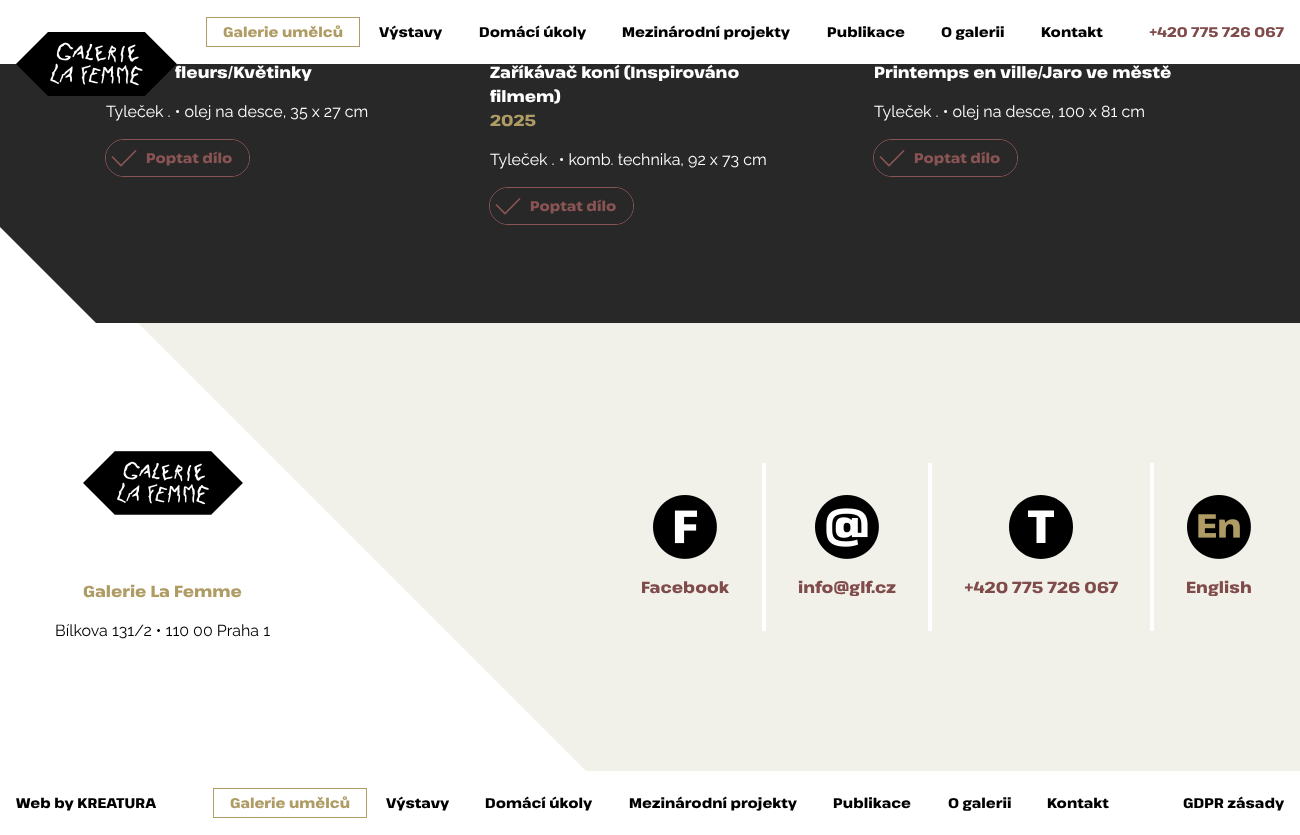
(async () => {
    const canvas = document.querySelector("canvas");
    canvas.width = 1300;
    canvas.height = 835;
    const context = canvas.getContext("2d");
    context.miterLimit = 4;
    context.fontKerning = "normal";
    function write(s, x, y, font, color) {
        context.font = font;
        context.fillStyle = color;
        context.fillText(s, x, y);
    }
    function block(x, y, w, h, color) {
        context.fillStyle = color;
        context.fillRect(x, y, w, h);
    }
    function card(x, y, w, h, r, color) {
        context.fillStyle = color;
        context.beginPath();
        context.roundRect(x, y, w, h, r);
        context.fill();
    }
    async function photo(src, x, y, w, h) {
        const img = new Image();
        img.src = src;
        await img.decode();
        context.drawImage(img, x, y, w, h);
    }

    block(0, 0, 1300, 835, "rgb(255, 255, 255)");
    context.fillStyle = "rgb(241, 240, 233)";
    context.beginPath();
    context.moveTo(0, -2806);
    context.lineTo(0, 185);
    context.lineTo(650, 835);
    context.lineTo(1300, 835);
    context.lineTo(1300, -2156);
    context.lineTo(650, -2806);
    context.closePath();
    context.fill();
    context.fillStyle = "rgb(40, 40, 40)";
    context.beginPath();
    context.moveTo(0, -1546);
    context.lineTo(0, 227);
    context.lineTo(96, 323);
    context.lineTo(1300, 323);
    context.lineTo(1300, -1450);
    context.lineTo(1204, -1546);
    context.closePath();
    context.fill();
    block(0, 0, 1300, 64, "rgb(255, 255, 255)");
    context.wordSpacing = "1px";
    write("fleurs/Květinky", 175, 78, "800 16px Pathway Extreme", "rgb(255, 255, 255)");
    await photo("media/1.png", 16, 32, 161, 64);
    context.strokeStyle = "rgb(175, 155, 100)";
    context.strokeRect(206.5, 17.5, 153, 29);
    context.wordSpacing = "0px";
    write("Galerie umělců", 223, 37, "800 14px Pathway Extreme", "rgb(175, 155, 100)");
    write("Výstavy", 379, 37, "800 14px Pathway Extreme", "rgb(0, 0, 0)");
    write("Domácí úkoly", 479, 37, "800 14px Pathway Extreme", "rgb(0, 0, 0)");
    write("Mezinárodní projekty", 622, 37, "800 14px Pathway Extreme", "rgb(0, 0, 0)");
    write("Publikace", 827, 37, "800 14px Pathway Extreme", "rgb(0, 0, 0)");
    write("O galerii", 941, 37, "800 14px Pathway Extreme", "rgb(0, 0, 0)");
    write("Kontakt", 1041, 37, "800 14px Pathway Extreme", "rgb(0, 0, 0)");
    write("+420 775 726 067", 1149, 37, "800 14px Pathway Extreme", "rgb(128, 75, 75)");
    write("Tyleček . • olej na desce, 35 x 27 cm", 106, 117, "16px Raleway", "rgb(255, 255, 255)");
    context.beginPath();
    context.roundRect(105.5, 139.5, 144, 37, 18.5);
    context.strokeStyle = "rgb(138, 84, 84)";
    context.stroke();
    card(106, 140, 143, 36, 18, "rgb(40, 40, 40)");
    context.beginPath();
    context.moveTo(136, 150.5);
    context.lineTo(121, 165.5);
    context.lineTo(112, 156.5);
    context.lineWidth = 1.7;
    context.stroke();
    write("Poptat dílo", 146, 163, "800 14px Pathway Extreme", "rgb(138, 84, 84)");
    write("Zaříkávač koní (Inspirováno", 490, 78, "800 16px Pathway Extreme", "rgb(255, 255, 255)");
    write("filmem)", 490, 102, "800 16px Pathway Extreme", "rgb(255, 255, 255)");
    write("2025", 490, 126, "800 16px Pathway Extreme", "rgb(175, 155, 100)");
    write("Tyleček . • komb. technika, 92 x 73 cm", 490, 165, "16px Raleway", "rgb(255, 255, 255)");
    context.beginPath();
    context.roundRect(489.5, 187.5, 144, 37, 18.5);
    context.lineWidth = 1;
    context.stroke();
    card(490, 188, 143, 36, 18, "rgb(40, 40, 40)");
    context.beginPath();
    context.moveTo(520, 198.5);
    context.lineTo(505, 213.5);
    context.lineTo(496, 204.5);
    context.lineWidth = 1.7;
    context.stroke();
    write("Poptat dílo", 530, 211, "800 14px Pathway Extreme", "rgb(138, 84, 84)");
    write("Printemps en ville/Jaro ve městě", 874, 78, "800 16px Pathway Extreme", "rgb(255, 255, 255)");
    write("Tyleček . • olej na desce, 100 x 81 cm", 874, 117, "16px Raleway", "rgb(255, 255, 255)");
    context.beginPath();
    context.roundRect(873.5, 139.5, 144, 37, 18.5);
    context.lineWidth = 1;
    context.stroke();
    card(874, 140, 143, 36, 18, "rgb(40, 40, 40)");
    context.beginPath();
    context.moveTo(904, 150.5);
    context.lineTo(889, 165.5);
    context.lineTo(880, 156.5);
    context.lineWidth = 1.7;
    context.stroke();
    write("Poptat dílo", 914, 163, "800 14px Pathway Extreme", "rgb(138, 84, 84)");
    await photo("media/2.png", 83, 451, 160, 64);
    write("Galerie La Femme", 83, 597, "800 16px Pathway Extreme", "rgb(175, 155, 100)");
    write("Bílkova 131/2 • 110 00 Praha 1", 55, 636, "16px Raleway", "rgb(0, 0, 0)");
    await photo("media/3.png", 653, 495, 64, 64);
    write("Facebook", 641, 593, "800 16px Pathway Extreme", "rgb(128, 75, 75)");
    block(762, 463, 4, 168, "rgb(255, 255, 255)");
    await photo("media/4.png", 815, 495, 64, 64);
    write("info@glf.cz", 798, 593, "800 16px Pathway Extreme", "rgb(128, 75, 75)");
    block(928, 463, 4, 168, "rgb(255, 255, 255)");
    context.fillStyle = "rgb(0, 0, 0)";
    context.beginPath();
    context.moveTo(1073, 527);
    context.bezierCurveTo(1073, 545, 1059, 559, 1041, 559);
    context.bezierCurveTo(1023, 559, 1009, 545, 1009, 527);
    context.bezierCurveTo(1009, 509, 1023, 495, 1041, 495);
    context.bezierCurveTo(1059, 495, 1073, 509, 1073, 527);
    context.fill("evenodd");
    context.fillStyle = "rgb(255, 255, 255)";
    context.beginPath();
    context.moveTo(1054, 510.5);
    context.lineTo(1028, 510.5);
    context.lineTo(1028, 517);
    context.lineTo(1036.5, 517);
    context.lineTo(1036.5, 543);
    context.lineTo(1045.5, 543);
    context.lineTo(1045.5, 517);
    context.lineTo(1054, 517);
    context.closePath();
    context.fill();
    write("+420 775 726 067", 964, 593, "800 16px Pathway Extreme", "rgb(128, 75, 75)");
    block(1150, 463, 4, 168, "rgb(255, 255, 255)");
    await photo("media/5.png", 1187, 495, 64, 64);
    write("English", 1186, 593, "800 16px Pathway Extreme", "rgb(128, 75, 75)");
    block(586, 771, 714, 64, "rgb(255, 255, 255)");
    write("Web by KREATURA", 16, 808, "800 14px Pathway Extreme", "rgb(0, 0, 0)");
    context.strokeStyle = "rgb(175, 155, 100)";
    context.lineWidth = 1;
    context.strokeRect(213.5, 788.5, 153, 29);
    write("Galerie umělců", 230, 808, "800 14px Pathway Extreme", "rgb(175, 155, 100)");
    write("Výstavy", 386, 808, "800 14px Pathway Extreme", "rgb(0, 0, 0)");
    write("Domácí úkoly", 485, 808, "800 14px Pathway Extreme", "rgb(0, 0, 0)");
    write("Mezinárodní projekty", 629, 808, "800 14px Pathway Extreme", "rgb(0, 0, 0)");
    write("Publikace", 833, 808, "800 14px Pathway Extreme", "rgb(0, 0, 0)");
    write("O galerii", 948, 808, "800 14px Pathway Extreme", "rgb(0, 0, 0)");
    write("Kontakt", 1047, 808, "800 14px Pathway Extreme", "rgb(0, 0, 0)");
    write("GDPR zásady", 1183, 808, "800 14px Pathway Extreme", "rgb(0, 0, 0)");
})();
